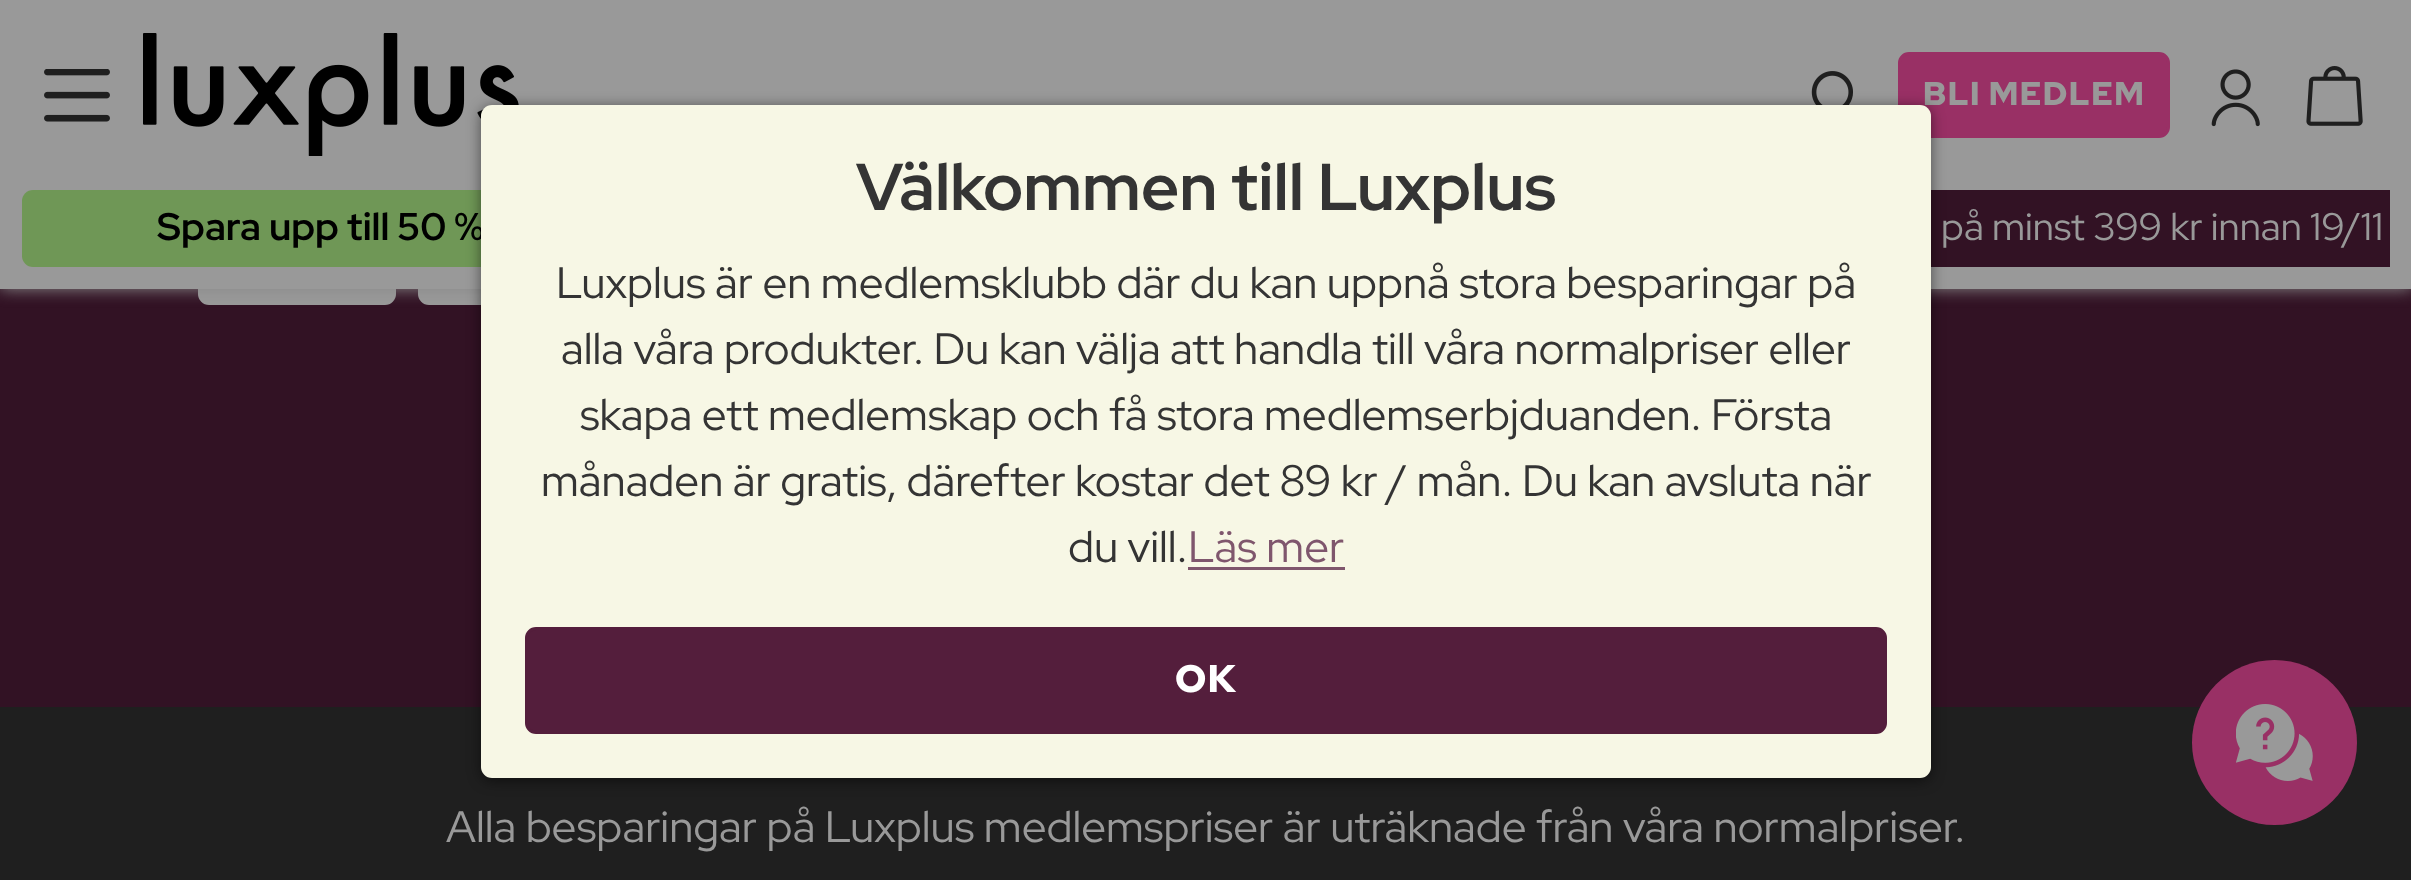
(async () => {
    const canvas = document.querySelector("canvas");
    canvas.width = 2411;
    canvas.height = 880;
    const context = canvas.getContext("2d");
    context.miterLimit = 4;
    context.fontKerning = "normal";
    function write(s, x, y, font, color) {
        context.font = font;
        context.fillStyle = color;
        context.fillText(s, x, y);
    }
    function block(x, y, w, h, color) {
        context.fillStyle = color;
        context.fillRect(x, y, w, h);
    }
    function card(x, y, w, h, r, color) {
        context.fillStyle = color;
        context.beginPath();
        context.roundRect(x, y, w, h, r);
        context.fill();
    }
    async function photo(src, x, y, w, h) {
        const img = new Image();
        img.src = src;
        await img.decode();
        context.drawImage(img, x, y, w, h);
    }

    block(0, 0, 2411, 880, "rgb(50, 18, 36)");
    card(198, 69, 198, 236, 11, "rgb(153, 153, 153)");
    card(418, 69, 198, 236, 11, "rgb(153, 153, 153)");
    context.fillStyle = "rgb(137, 137, 137)";
    context.filter = "blur(8px)";
    context.beginPath();
    context.rect(0, 0, 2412, 289);
    context.fill();
    context.filter = "none";
    block(0, 0, 2411, 289, "rgb(153, 153, 153)");
    await photo("media/1.png", 44, 69, 66, 53);
    await photo("media/2.png", 143, 33, 376, 123);
    await photo("media/3.png", 1811, 71, 42, 34);
    context.fillStyle = "rgb(153, 48, 101)";
    context.beginPath();
    context.roundRect(1899.5, 53.5, 269, 83, 9.5);
    context.fill();
    context.strokeStyle = "rgb(153, 48, 101)";
    context.lineWidth = 3;
    context.stroke();
    context.letterSpacing = "1.4px";
    write("BLI MEDLEM", 1923, 105, "900 33px Red Hat Display", "rgb(153, 153, 153)");
    await photo("media/4.png", 2211, 69, 49, 58);
    await photo("media/5.png", 2306, 66, 57, 60);
    card(22, 190, 1097, 77, 11, "rgb(111, 151, 86)");
    context.letterSpacing = "0px";
    write("Spara upp till 50 %", 157, 240, "bold 38.5px Red Hat Display", "rgb(0, 0, 0)");
    block(1931, 190, 459, 77, "rgb(50, 18, 36)");
    write("på minst 399 kr innan 19/11", 1941, 240, "38.5px Red Hat Display", "rgb(153, 153, 153)");
    block(0, 707, 2411, 173, "rgb(31, 31, 31)");
    context.fillStyle = "rgba(0, 0, 0, 0.5)";
    context.filter = "blur(7px)";
    context.beginPath();
    context.roundRect(481, 107, 1450, 674, 11);
    context.fill();
    context.filter = "none";
    card(481, 105, 1450, 673, 11, "rgb(247, 247, 229)");
    write("Välkommen till Luxplus", 856, 210, "bold 66px Red Hat Display", "rgb(52, 52, 52)");
    write("Luxplus är en medlemsklubb där du kan uppnå stora besparingar på", 556, 298, "44px Red Hat Display", "rgb(52, 52, 52)");
    write("alla våra produkter. Du kan välja att handla till våra normalpriser eller", 561, 364, "44px Red Hat Display", "rgb(52, 52, 52)");
    write("skapa ett medlemskap och få stora medlemserbjduanden. Första", 580, 430, "44px Red Hat Display", "rgb(52, 52, 52)");
    write("månaden är gratis, därefter kostar det 89 kr / mån. Du kan avsluta när", 541, 496, "44px Red Hat Display", "rgb(52, 52, 52)");
    write("du vill.", 1068, 562, "44px Red Hat Display", "rgb(52, 52, 52)");
    write("Läs mer", 1188, 562, "44px Red Hat Display", "rgb(127, 86, 109)");
    block(1188, 567, 157, 3, "rgb(127, 86, 109)");
    context.fillStyle = "rgb(84, 30, 60)";
    context.beginPath();
    context.roundRect(526.5, 628.5, 1359, 104, 9.5);
    context.fill();
    context.strokeStyle = "rgb(84, 30, 60)";
    context.stroke();
    context.letterSpacing = "1.4px";
    write("OK", 1175, 692, "900 38.5px Red Hat Display", "rgb(255, 255, 255)");
    context.letterSpacing = "0px";
    write("Alla besparingar på Luxplus medlemspriser är uträknade från våra normalpriser.", 446, 842, "44px Red Hat Display", "rgb(153, 153, 153)");
    context.fillStyle = "rgb(153, 48, 101)";
    context.beginPath();
    context.arc(2274.5, 742.5, 82.5, 0, Math.PI * 2);
    context.fill();
    await photo("media/6.png", 2236, 704, 77, 77);
})();
